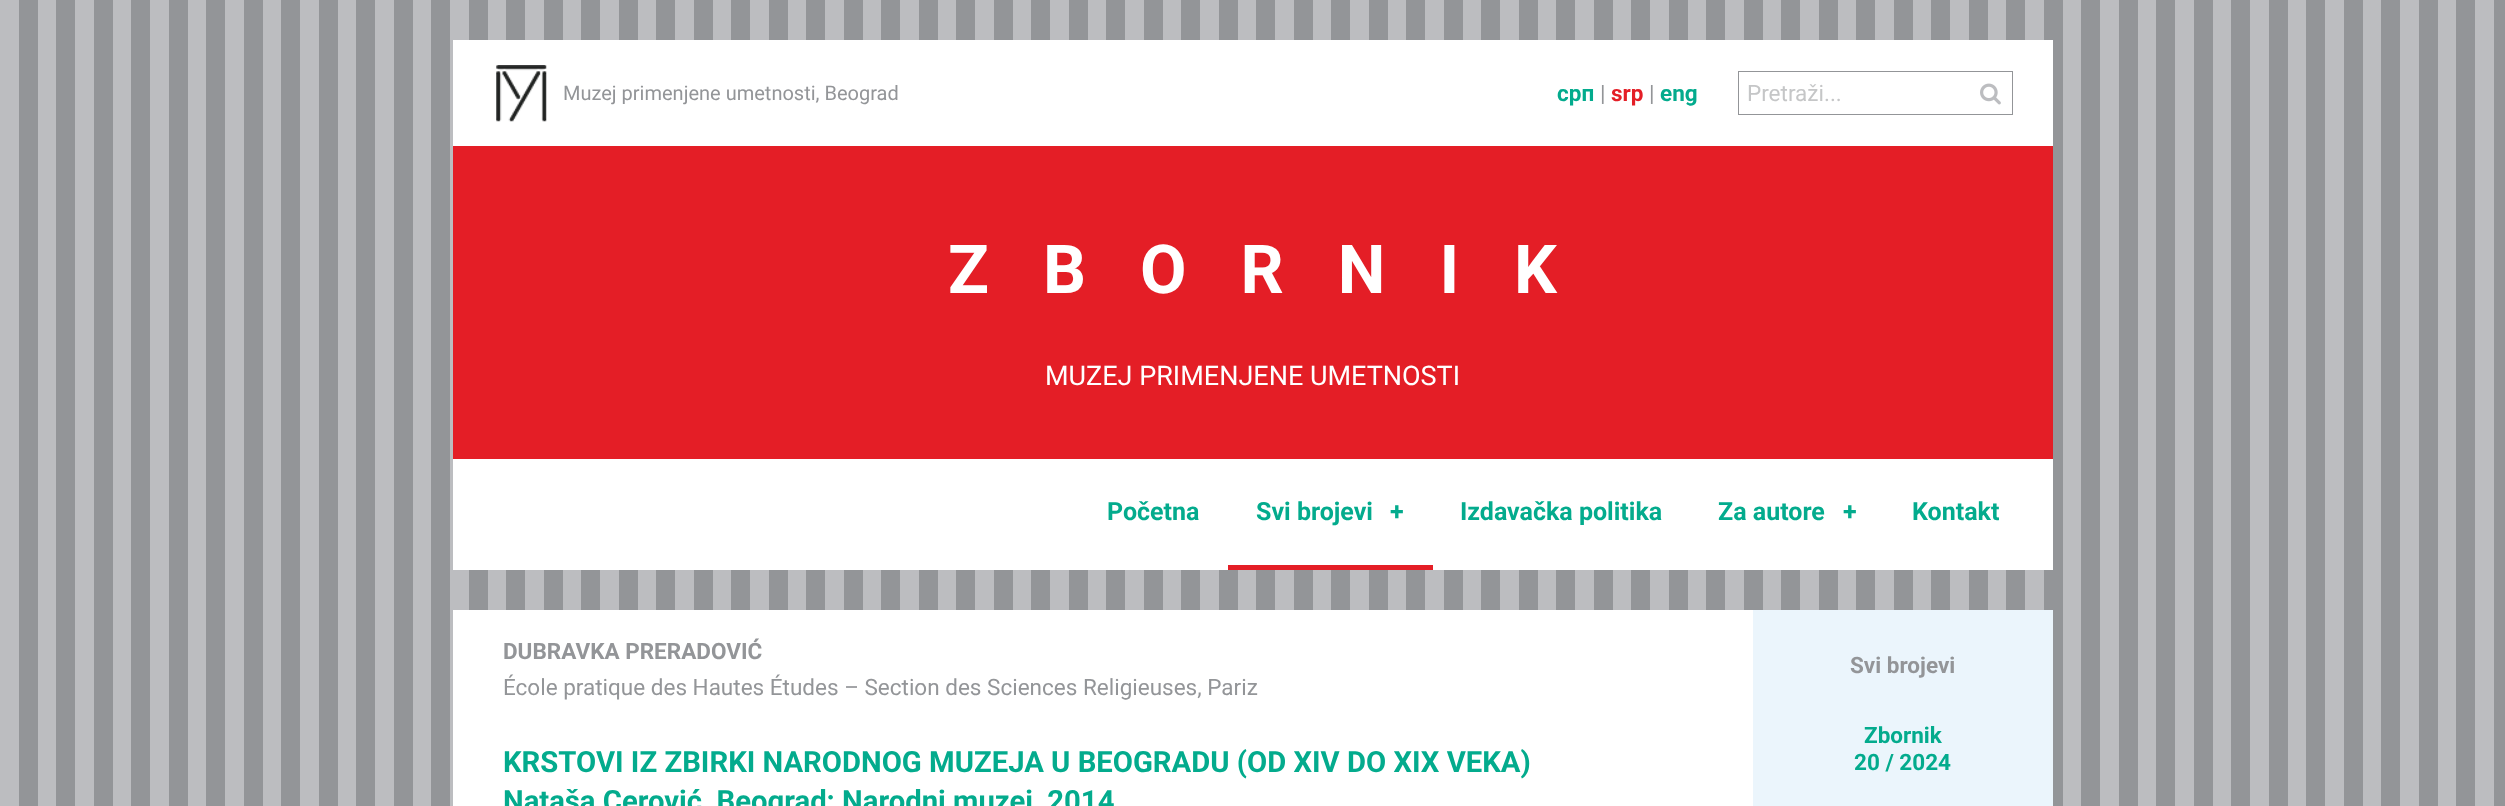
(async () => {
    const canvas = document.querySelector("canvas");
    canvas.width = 2505;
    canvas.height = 806;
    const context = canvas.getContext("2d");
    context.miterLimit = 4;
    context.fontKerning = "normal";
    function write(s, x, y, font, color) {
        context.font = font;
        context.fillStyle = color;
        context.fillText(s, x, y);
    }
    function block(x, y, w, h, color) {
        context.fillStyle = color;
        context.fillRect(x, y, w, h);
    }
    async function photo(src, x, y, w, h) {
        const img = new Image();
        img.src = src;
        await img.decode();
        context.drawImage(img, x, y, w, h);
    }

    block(0, 0, 2505, 806, "rgb(255, 255, 255)");
    await photo("media/1.png", 0, 0, 2505, 806);
    block(453, 40, 1600, 106, "rgb(255, 255, 255)");
    await photo("media/2.png", 496, 65, 51, 57);
    write("Muzej primenjene umetnosti, Beograd", 563, 100, "20px Roboto", "rgb(147, 149, 152)");
    write("срп", 1557, 101, "bold 22.5px Roboto", "rgb(3, 171, 141)");
    write("|", 1600, 101, "22.5px Roboto", "rgb(147, 149, 152)");
    write("srp", 1611, 101, "bold 22.5px Roboto", "rgb(228, 30, 38)");
    write("|", 1649, 101, "22.5px Roboto", "rgb(147, 149, 152)");
    write("eng", 1660, 101, "bold 22.5px Roboto", "rgb(3, 171, 141)");
    context.strokeStyle = "rgb(147, 149, 152)";
    context.strokeRect(1738.5, 71.5, 274, 43);
    write("Pretraži...", 1747, 101, "22.5px Roboto", "rgb(197, 198, 199)");
    await photo("media/3.png", 1980, 83, 21, 22);
    block(453, 146, 1600, 313, "rgb(228, 30, 38)");
    context.letterSpacing = "54px";
    write("ZBORNI", 948, 293, "bold 67.5px Roboto", "rgb(255, 255, 255)");
    context.letterSpacing = "0px";
    write("K", 1514, 293, "bold 67.5px Roboto", "rgb(255, 255, 255)");
    write("MUZEJ PRIMENJENE UMETNOSTI", 1045, 385, "27px Roboto", "rgb(255, 255, 255)");
    block(453, 459, 1600, 111, "rgb(255, 255, 255)");
    write("Početna", 1107, 520, "bold 25px Roboto", "rgb(3, 171, 141)");
    block(1228, 565, 205, 5, "rgb(228, 30, 38)");
    write("Svi brojevi", 1256, 520, "bold 25px Roboto", "rgb(3, 171, 141)");
    write("+", 1390, 520, "bold 25px Roboto", "rgb(3, 171, 141)");
    write("Izdavačka politika", 1460, 520, "bold 25px Roboto", "rgb(3, 171, 141)");
    write("Za autore", 1718, 520, "bold 25px Roboto", "rgb(3, 171, 141)");
    write("+", 1843, 520, "bold 25px Roboto", "rgb(3, 171, 141)");
    write("Kontakt", 1912, 520, "bold 25px Roboto", "rgb(3, 171, 141)");
    block(453, 610, 1300, 196, "rgb(255, 255, 255)");
    write("DUBRAVKA PRERADOVIĆ", 503, 659, "bold 22.5px Roboto", "rgb(147, 149, 152)");
    write("École pratique des Hautes Études – Section des Sciences Religieuses, Pariz", 503, 695, "22.5px Roboto", "rgb(147, 149, 152)");
    write("KRSTOVI IZ ZBIRKI NARODNOG MUZEJA U BEOGRADU (OD XIV DO XIX VEKA)", 503, 772, "bold 29.25px Roboto", "rgb(3, 171, 141)");
    write("Nataša Cerović, Beograd: Narodni muzej, 2014", 503, 811, "bold 29.25px Roboto", "rgb(3, 171, 141)");
    block(1753, 610, 300, 196, "rgb(235, 245, 252)");
    write("Svi brojevi", 1850, 673, "bold 22.5px Roboto", "rgb(147, 149, 152)");
    write("Zbornik", 1864, 743, "bold 22.5px Roboto", "rgb(3, 171, 141)");
    write("20 / 2024", 1854, 770, "bold 22.5px Roboto", "rgb(3, 171, 141)");
})();
